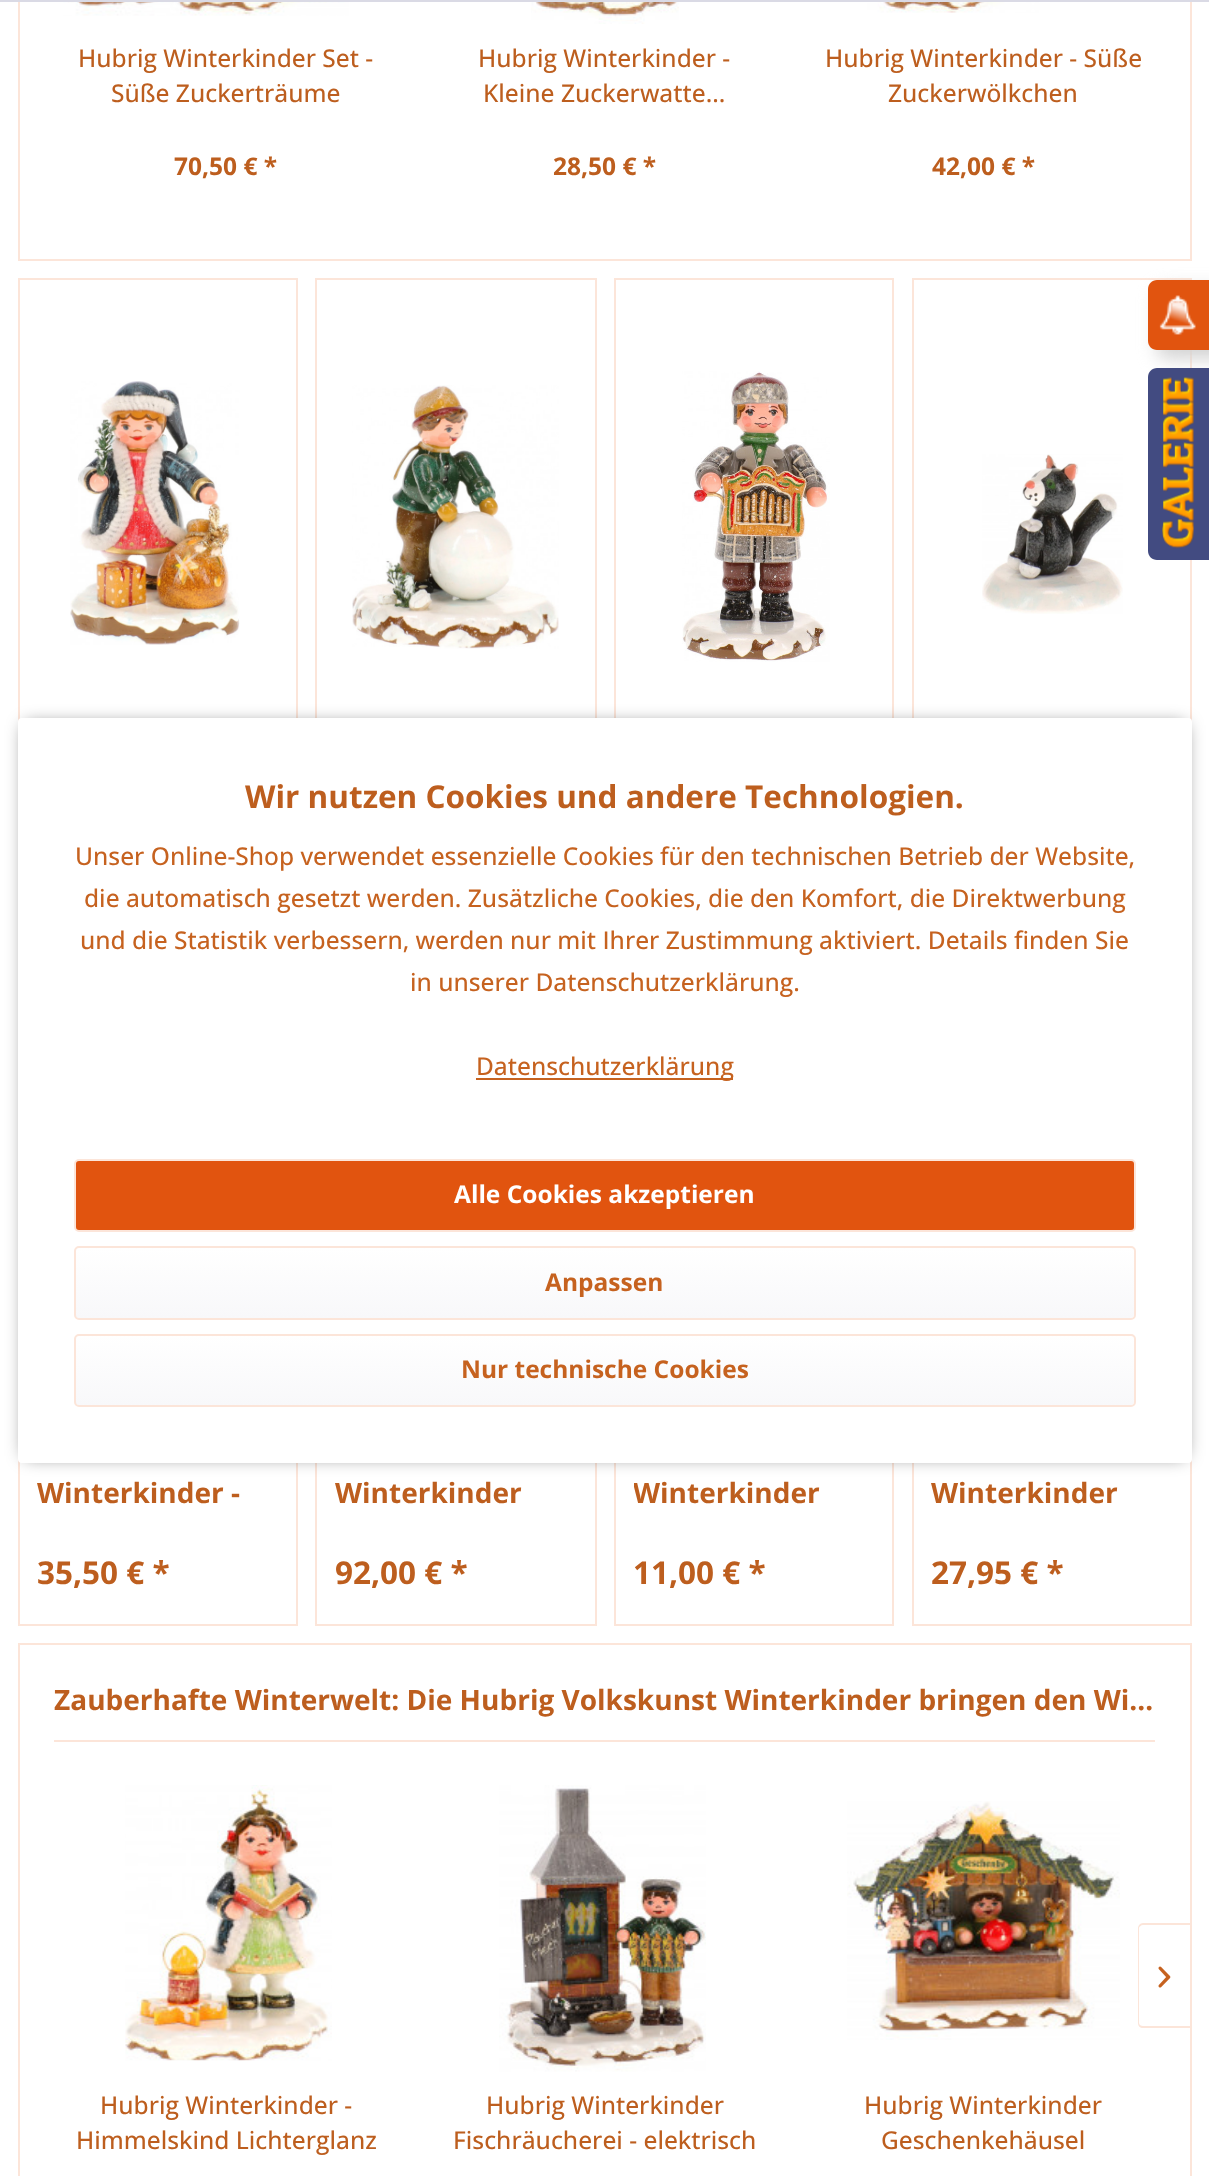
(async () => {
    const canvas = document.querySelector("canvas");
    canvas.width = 1209;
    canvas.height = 2176;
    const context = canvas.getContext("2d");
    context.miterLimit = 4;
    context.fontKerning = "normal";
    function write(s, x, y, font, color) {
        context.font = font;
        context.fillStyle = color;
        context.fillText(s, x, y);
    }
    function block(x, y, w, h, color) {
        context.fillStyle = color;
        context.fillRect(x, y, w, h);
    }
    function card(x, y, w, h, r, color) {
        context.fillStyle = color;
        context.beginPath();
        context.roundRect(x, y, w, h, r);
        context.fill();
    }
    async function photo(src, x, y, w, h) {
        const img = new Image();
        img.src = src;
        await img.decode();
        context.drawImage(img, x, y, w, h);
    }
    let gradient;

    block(0, 0, 1209, 2176, "rgb(255, 255, 255)");
    context.strokeStyle = "rgb(252, 229, 217)";
    context.lineWidth = 2;
    context.strokeRect(19, -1, 1172, 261);
    await photo("media/1.png", 63, 2, 286, 14);
    write("Hubrig Winterkinder Set -", 78, 67, "500 24.5px Open Sans", "rgb(189, 94, 30)");
    write("Süße Zuckerträume", 111, 102, "500 24.5px Open Sans", "rgb(189, 94, 30)");
    write("70,50 € *", 174, 175, "bold 24.5px Open Sans", "rgb(189, 94, 30)");
    await photo("media/2.png", 531, 2, 148, 22);
    write("Hubrig Winterkinder -", 478, 67, "500 24.5px Open Sans", "rgb(189, 94, 30)");
    write("Kleine Zuckerwatte...", 483, 102, "500 24.5px Open Sans", "rgb(189, 94, 30)");
    write("28,50 € *", 553, 175, "bold 24.5px Open Sans", "rgb(189, 94, 30)");
    await photo("media/3.png", 867, 2, 183, 11);
    write("Hubrig Winterkinder - Süße", 825, 67, "500 24.5px Open Sans", "rgb(189, 94, 30)");
    write("Zuckerwölkchen", 888, 102, "500 24.5px Open Sans", "rgb(189, 94, 30)");
    write("42,00 € *", 932, 175, "bold 24.5px Open Sans", "rgb(189, 94, 30)");
    context.strokeRect(19, 279, 278, 663);
    await photo("media/4.png", 70, 381, 170, 264);
    context.strokeRect(316, 279, 280, 663);
    await photo("media/5.png", 352, 385, 207, 264);
    context.strokeRect(615, 279, 278, 663);
    await photo("media/6.png", 682, 371, 148, 291);
    context.strokeRect(913, 279, 278, 663);
    await photo("media/7.png", 982, 454, 141, 160);
    context.strokeRect(19, 962, 278, 663);
    write("Winterkinder -", 37, 1503, "bold 28px Open Sans", "rgb(189, 94, 30)");
    write("35,50 € *", 37, 1584, "bold 31.5px Open Sans", "rgb(189, 94, 30)");
    context.strokeRect(316, 962, 280, 663);
    write("Winterkinder", 335, 1503, "bold 28px Open Sans", "rgb(189, 94, 30)");
    write("92,00 € *", 335, 1584, "bold 31.5px Open Sans", "rgb(189, 94, 30)");
    context.strokeRect(615, 962, 278, 663);
    context.save();
    context.beginPath();
    context.rect(634, 1440, 241, 70);
    context.clip();
    write("Winterkinder", 633, 1503, "bold 28px Open Sans", "rgb(189, 94, 30)");
    context.restore();
    write("11,00 € *", 633, 1584, "bold 31.5px Open Sans", "rgb(189, 94, 30)");
    context.strokeRect(913, 962, 278, 663);
    write("Winterkinder", 931, 1503, "bold 28px Open Sans", "rgb(189, 94, 30)");
    write("27,95 € *", 931, 1584, "bold 31.5px Open Sans", "rgb(189, 94, 30)");
    context.strokeRect(19, 1644, 1172, 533);
    block(54, 1740, 1101, 2, "rgb(252, 229, 217)");
    write("Zauberhafte Winterwelt: Die Hubrig Volkskunst Winterkinder bringen den Wi…", 54, 1710, "bold 28px Open Sans", "rgb(189, 94, 30)");
    context.fillStyle = "rgb(252, 229, 217)";
    context.beginPath();
    context.moveTo(1143, 1923);
    context.lineTo(1190, 1923);
    context.lineTo(1190, 2028);
    context.lineTo(1143, 2028);
    context.bezierCurveTo(1140, 2028, 1138, 2026, 1138, 2023);
    context.lineTo(1138, 1928);
    context.bezierCurveTo(1138, 1926, 1140, 1923, 1143, 1923);
    context.closePath();
    context.moveTo(1143, 1925);
    context.lineTo(1190, 1925);
    context.lineTo(1190, 2026);
    context.lineTo(1143, 2026);
    context.bezierCurveTo(1141, 2026, 1139, 2025, 1139, 2023);
    context.lineTo(1139, 1928);
    context.bezierCurveTo(1139, 1927, 1141, 1925, 1143, 1925);
    context.closePath();
    context.fill("evenodd");
    await photo("media/8.png", 1158, 1966, 13, 22);
    await photo("media/9.png", 125, 1785, 207, 276);
    write("Hubrig Winterkinder -", 100, 2114, "500 24.5px Open Sans", "rgb(189, 94, 30)");
    write("Himmelskind Lichterglanz", 76, 2149, "500 24.5px Open Sans", "rgb(189, 94, 30)");
    await photo("media/10.png", 499, 1785, 207, 287);
    write("Hubrig Winterkinder", 486, 2114, "500 24.5px Open Sans", "rgb(189, 94, 30)");
    write("Fischräucherei - elektrisch", 453, 2149, "500 24.5px Open Sans", "rgb(189, 94, 30)");
    await photo("media/11.png", 847, 1801, 273, 239);
    write("Hubrig Winterkinder", 864, 2114, "500 24.5px Open Sans", "rgb(189, 94, 30)");
    write("Geschenkehäusel", 881, 2149, "500 24.5px Open Sans", "rgb(189, 94, 30)");
    context.fillStyle = "rgb(211, 211, 211)";
    context.filter = "blur(9px)";
    context.beginPath();
    context.roundRect(1157, 289, 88, 70, 9);
    context.fill();
    context.filter = "none";
    context.fillStyle = "rgb(225, 84, 15)";
    context.beginPath();
    context.moveTo(1157, 280);
    context.lineTo(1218, 280);
    context.lineTo(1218, 350);
    context.lineTo(1157, 350);
    context.bezierCurveTo(1152, 350, 1148, 346, 1148, 341);
    context.lineTo(1148, 289);
    context.bezierCurveTo(1148, 284, 1152, 280, 1157, 280);
    context.closePath();
    context.fill();
    await photo("media/12.png", 1159, 295, 37, 40);
    context.fillStyle = "rgb(66, 75, 129)";
    context.beginPath();
    context.moveTo(1157, 368);
    context.lineTo(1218, 368);
    context.lineTo(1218, 560);
    context.lineTo(1157, 560);
    context.bezierCurveTo(1152, 560, 1148, 556, 1148, 551);
    context.lineTo(1148, 377);
    context.bezierCurveTo(1148, 372, 1152, 368, 1157, 368);
    context.closePath();
    context.fill();
    await photo("media/13.png", 1162, 377, 32, 172);
    block(0, 0, 1209, 2, "rgb(218, 218, 229)");
    context.fillStyle = "rgba(0, 0, 0, 0.6)";
    context.filter = "blur(9px)";
    context.beginPath();
    context.rect(25, 725, 1160, 731);
    context.fill();
    context.filter = "none";
    card(18, 718, 1174, 745, 4, "rgb(255, 255, 255)");
    write("Wir nutzen Cookies und andere Technologien.", 245, 808, "bold 31.5px Open Sans", "rgb(189, 94, 30)");
    write("Unser Online-Shop verwendet essenzielle Cookies für den technischen Betrieb der Website,", 75, 865, "500 24.5px Open Sans", "rgb(198, 98, 31)");
    write("die automatisch gesetzt werden. Zusätzliche Cookies, die den Komfort, die Direktwerbung", 84, 907, "500 24.5px Open Sans", "rgb(198, 98, 31)");
    write("und die Statistik verbessern, werden nur mit Ihrer Zustimmung aktiviert. Details finden Sie", 80, 949, "500 24.5px Open Sans", "rgb(198, 98, 31)");
    write("in unserer Datenschutzerklärung.", 410, 991, "500 24.5px Open Sans", "rgb(198, 98, 31)");
    block(476, 1078, 257, 2, "rgb(198, 98, 31)");
    write("Datenschutzerklärung", 476, 1075, "500 24.5px Open Sans", "rgb(198, 98, 31)");
    context.fillStyle = "rgb(225, 84, 15)";
    context.beginPath();
    context.roundRect(75, 1160, 1060, 71, 4);
    context.fill();
    context.stroke();
    write("Alle Cookies akzeptieren", 454, 1203, "bold 24.5px Open Sans", "rgb(255, 255, 255)");
    gradient = context.createLinearGradient(605, 1248, 605, 1318);
    gradient.addColorStop(0, "rgb(255, 255, 255)");
    gradient.addColorStop(1, "rgb(248, 248, 250)");
    context.fillStyle = gradient;
    context.beginPath();
    context.roundRect(75, 1248, 1059, 70, 4);
    context.fill();
    context.beginPath();
    context.roundRect(75, 1247, 1060, 72, 4);
    context.stroke();
    write("Anpassen", 545, 1291, "bold 24.5px Open Sans", "rgb(198, 98, 31)");
    gradient = context.createLinearGradient(605, 1335, 605, 1405);
    gradient.addColorStop(0, "rgb(255, 255, 255)");
    gradient.addColorStop(1, "rgb(248, 248, 250)");
    context.fillStyle = gradient;
    context.beginPath();
    context.roundRect(75, 1335, 1059, 70, 4);
    context.fill();
    context.beginPath();
    context.roundRect(75, 1335, 1060, 71, 4);
    context.stroke();
    write("Nur technische Cookies", 461, 1378, "bold 24.5px Open Sans", "rgb(198, 98, 31)");
})();
